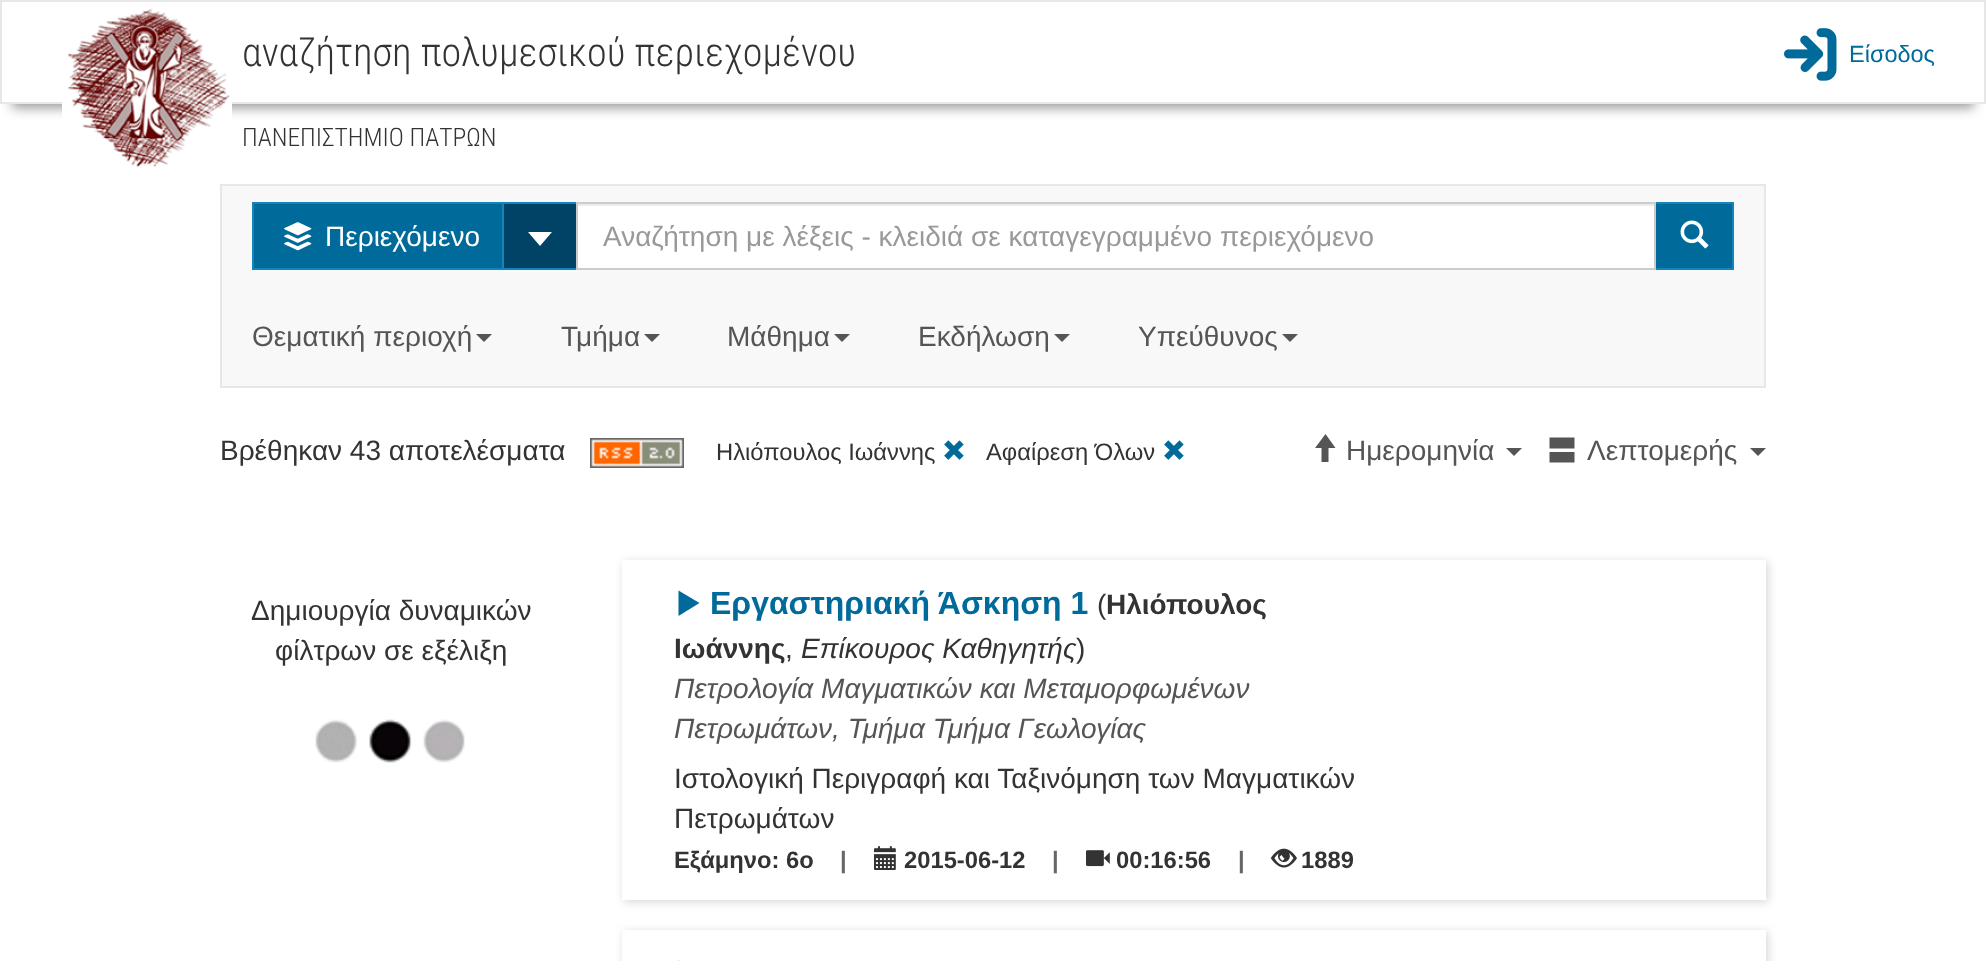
(async () => {
    const canvas = document.querySelector("canvas");
    canvas.width = 1986;
    canvas.height = 961;
    const context = canvas.getContext("2d");
    context.miterLimit = 4;
    context.fontKerning = "normal";
    function write(s, x, y, font, color) {
        context.font = font;
        context.fillStyle = color;
        context.fillText(s, x, y);
    }
    function block(x, y, w, h, color) {
        context.fillStyle = color;
        context.fillRect(x, y, w, h);
    }
    async function photo(src, x, y, w, h) {
        const img = new Image();
        img.src = src;
        await img.decode();
        context.drawImage(img, x, y, w, h);
    }

    block(0, 0, 1986, 961, "rgb(255, 255, 255)");
    context.save();
    context.beginPath();
    context.rect(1, 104, 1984, 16);
    context.clip();
    context.fillStyle = "rgb(153, 153, 153)";
    context.filter = "blur(6px)";
    context.beginPath();
    context.rect(12, 28, 1962, 80);
    context.fill();
    context.filter = "none";
    context.restore();
    context.strokeStyle = "rgb(231, 231, 231)";
    context.lineWidth = 2;
    context.strokeRect(1, 1, 1984, 102);
    await photo("media/1.png", 62, 8, 170, 159);
    write("αναζήτηση πολυμεσικού περιεχομένου", 242, 66, "300 40px Roboto Condensed", "rgb(51, 51, 51)");
    write("ΠΑΝΕΠΙΣΤΗΜΙΟ ΠΑΤΡΩΝ", 242, 146, "300 25.5px Roboto Condensed", "rgb(51, 51, 51)");
    await photo("media/2.png", 1784, 28, 53, 53);
    write("Είσοδος", 1849, 62, "23.5px Liberation Sans", "rgb(0, 106, 155)");
    context.fillStyle = "rgb(248, 248, 248)";
    context.beginPath();
    context.rect(221, 185, 1544, 202);
    context.fill();
    context.stroke();
    block(254, 204, 248, 64, "rgb(0, 106, 155)");
    context.strokeStyle = "rgb(19, 133, 186)";
    context.strokeRect(253, 203, 252, 66);
    await photo("media/3.png", 284, 222, 28, 29);
    write("Περιεχόμενο", 325, 246, "28px Liberation Sans", "rgb(255, 255, 255)");
    context.fillStyle = "rgb(0, 67, 103)";
    context.beginPath();
    context.rect(503, 203, 74, 66);
    context.fill();
    context.stroke();
    context.fillStyle = "rgb(255, 255, 255)";
    context.beginPath();
    context.moveTo(528, 232);
    context.lineTo(552, 232);
    context.lineTo(540, 246);
    context.closePath();
    context.fill();
    block(578, 206, 1076, 62, "rgb(255, 255, 255)");
    block(578, 204, 1076, 2, "rgb(236, 236, 236)");
    context.fillStyle = "rgb(0, 106, 155)";
    context.beginPath();
    context.rect(1655, 203, 78, 66);
    context.fill();
    context.stroke();
    context.strokeStyle = "rgb(204, 204, 204)";
    context.strokeRect(577, 203, 1078, 66);
    write("Αναζήτηση με λέξεις - κλειδιά σε καταγεγραμμένο περιεχόμενο", 603, 246, "28px Liberation Sans", "rgb(153, 153, 153)");
    await photo("media/4.png", 1680, 220, 29, 29);
    write("Θεματική περιοχή", 252, 346, "28px Liberation Sans", "rgb(85, 85, 85)");
    context.beginPath();
    context.moveTo(476, 334);
    context.lineTo(492, 334);
    context.lineTo(484, 342);
    context.closePath();
    context.fill();
    write("Τμήμα", 561, 346, "28px Liberation Sans", "rgb(85, 85, 85)");
    context.beginPath();
    context.moveTo(644, 334);
    context.lineTo(660, 334);
    context.lineTo(652, 342);
    context.closePath();
    context.fill();
    write("Μάθημα", 727, 346, "28px Liberation Sans", "rgb(85, 85, 85)");
    context.beginPath();
    context.moveTo(834, 334);
    context.lineTo(850, 334);
    context.lineTo(842, 342);
    context.closePath();
    context.fill();
    write("Εκδήλωση", 918, 346, "28px Liberation Sans", "rgb(85, 85, 85)");
    context.beginPath();
    context.moveTo(1054, 334);
    context.lineTo(1070, 334);
    context.lineTo(1062, 342);
    context.closePath();
    context.fill();
    write("Υπεύθυνος", 1138, 346, "28px Liberation Sans", "rgb(85, 85, 85)");
    context.beginPath();
    context.moveTo(1282, 334);
    context.lineTo(1298, 334);
    context.lineTo(1290, 342);
    context.closePath();
    context.fill();
    write("Βρέθηκαν 43 αποτελέσματα", 220, 460, "28px Liberation Sans", "rgb(51, 51, 51)");
    await photo("media/5.png", 590, 438, 94, 30);
    write("Ηλιόπουλος Ιωάννης", 716, 460, "23.75px Liberation Sans", "rgb(51, 51, 51)");
    await photo("media/6.png", 944, 440, 20, 20);
    write("Αφαίρεση Όλων", 986, 460, "23.75px Liberation Sans", "rgb(51, 51, 51)");
    await photo("media/6.png", 1164, 440, 20, 20);
    context.fillStyle = "rgb(85, 85, 85)";
    context.beginPath();
    context.moveTo(1315, 448);
    context.lineTo(1325.5, 434);
    context.lineTo(1335.5, 448);
    context.lineTo(1328.5, 448);
    context.lineTo(1328.5, 462);
    context.lineTo(1321.5, 462);
    context.lineTo(1321.5, 448);
    context.closePath();
    context.fill();
    write("Ημερομηνία", 1346, 460, "28px Liberation Sans", "rgb(85, 85, 85)");
    context.beginPath();
    context.moveTo(1506, 448);
    context.lineTo(1522, 448);
    context.lineTo(1514, 456);
    context.closePath();
    context.fill();
    context.beginPath();
    context.moveTo(1549.5, 437.5);
    context.lineTo(1574.5, 437.5);
    context.lineTo(1574.5, 448.5);
    context.lineTo(1549.5, 448.5);
    context.closePath();
    context.moveTo(1549.5, 452);
    context.lineTo(1574.5, 452);
    context.lineTo(1574.5, 462.5);
    context.lineTo(1549.5, 462.5);
    context.closePath();
    context.fill();
    write("Λεπτομερής", 1587, 460, "28px Liberation Sans", "rgb(85, 85, 85)");
    context.beginPath();
    context.moveTo(1750, 448);
    context.lineTo(1766, 448);
    context.lineTo(1758, 456);
    context.closePath();
    context.fill();
    write("Δημιουργία δυναμικών", 251, 620, "28px Liberation Sans", "rgb(51, 51, 51)");
    write("φίλτρων σε εξέλιξη", 275, 660, "28px Liberation Sans", "rgb(51, 51, 51)");
    await photo("media/7.png", 315, 719, 150, 44);
    context.save();
    context.beginPath();
    context.moveTo(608, 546);
    context.lineTo(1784, 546);
    context.lineTo(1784, 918);
    context.lineTo(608, 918);
    context.closePath();
    context.moveTo(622, 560);
    context.lineTo(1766, 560);
    context.lineTo(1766, 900);
    context.lineTo(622, 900);
    context.closePath();
    context.clip("evenodd");
    context.fillStyle = "rgba(50, 50, 50, 0.2)";
    context.filter = "blur(5px)";
    context.beginPath();
    context.rect(624, 562, 1144, 340);
    context.fill();
    context.filter = "none";
    context.restore();
    context.fillStyle = "rgb(0, 106, 155)";
    context.beginPath();
    context.moveTo(678.5, 616);
    context.lineTo(699.5, 603);
    context.lineTo(678.5, 590.5);
    context.closePath();
    context.fill();
    write("Εργαστηριακή Άσκηση 1", 710, 614, "bold 32px Liberation Sans", "rgb(0, 106, 155)");
    write("(", 1097, 614, "28px Liberation Sans", "rgb(51, 51, 51)");
    write("Ηλιόπουλος", 1106, 614, "bold 28px Liberation Sans", "rgb(51, 51, 51)");
    write("Ιωάννης", 674, 658, "bold 28px Liberation Sans", "rgb(51, 51, 51)");
    write(",", 785, 658, "28px Liberation Sans", "rgb(51, 51, 51)");
    write("Επίκουρος Καθηγητής", 801, 658, "italic 28px Liberation Sans", "rgb(51, 51, 51)");
    write(")", 1076, 658, "28px Liberation Sans", "rgb(51, 51, 51)");
    write("Πετρολογία Μαγματικών και Μεταμορφωμένων", 674, 698, "italic 28px Liberation Sans", "rgb(85, 85, 85)");
    write("Πετρωμάτων, Τμήμα Τμήμα Γεωλογίας", 674, 738, "italic 28px Liberation Sans", "rgb(85, 85, 85)");
    write("Ιστολογική Περιγραφή και Ταξινόμηση των Μαγματικών", 674, 788, "28px Liberation Sans", "rgb(51, 51, 51)");
    write("Πετρωμάτων", 674, 828, "28px Liberation Sans", "rgb(51, 51, 51)");
    write("Εξάμηνο: 6o", 674, 868, "bold 23.75px Liberation Sans", "rgb(51, 51, 51)");
    write("|", 840, 868, "bold 23.75px Liberation Sans", "rgb(102, 102, 102)");
    await photo("media/8.png", 874, 846, 22, 24);
    write("2015-06-12", 904, 868, "bold 23.75px Liberation Sans", "rgb(51, 51, 51)");
    write("|", 1052, 868, "bold 23.75px Liberation Sans", "rgb(102, 102, 102)");
    await photo("media/9.png", 1086, 850, 24, 17);
    write("00:16:56", 1116, 868, "bold 23.75px Liberation Sans", "rgb(51, 51, 51)");
    write("|", 1238, 868, "bold 23.75px Liberation Sans", "rgb(102, 102, 102)");
    await photo("media/10.png", 1270, 848, 27, 20);
    write("1889", 1301, 868, "bold 23.75px Liberation Sans", "rgb(51, 51, 51)");
    context.save();
    context.beginPath();
    context.moveTo(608, 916);
    context.lineTo(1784, 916);
    context.lineTo(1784, 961);
    context.lineTo(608, 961);
    context.closePath();
    context.moveTo(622, 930);
    context.lineTo(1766, 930);
    context.lineTo(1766, 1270);
    context.lineTo(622, 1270);
    context.closePath();
    context.clip("evenodd");
    context.fillStyle = "rgba(50, 50, 50, 0.2)";
    context.filter = "blur(5px)";
    context.beginPath();
    context.rect(624, 932, 1144, 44);
    context.fill();
    context.filter = "none";
    context.restore();
    context.fillStyle = "rgb(0, 106, 155)";
    context.beginPath();
    context.moveTo(678.5, 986);
    context.lineTo(699.5, 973);
    context.lineTo(678.5, 960.5);
    context.closePath();
    context.fill();
})();
